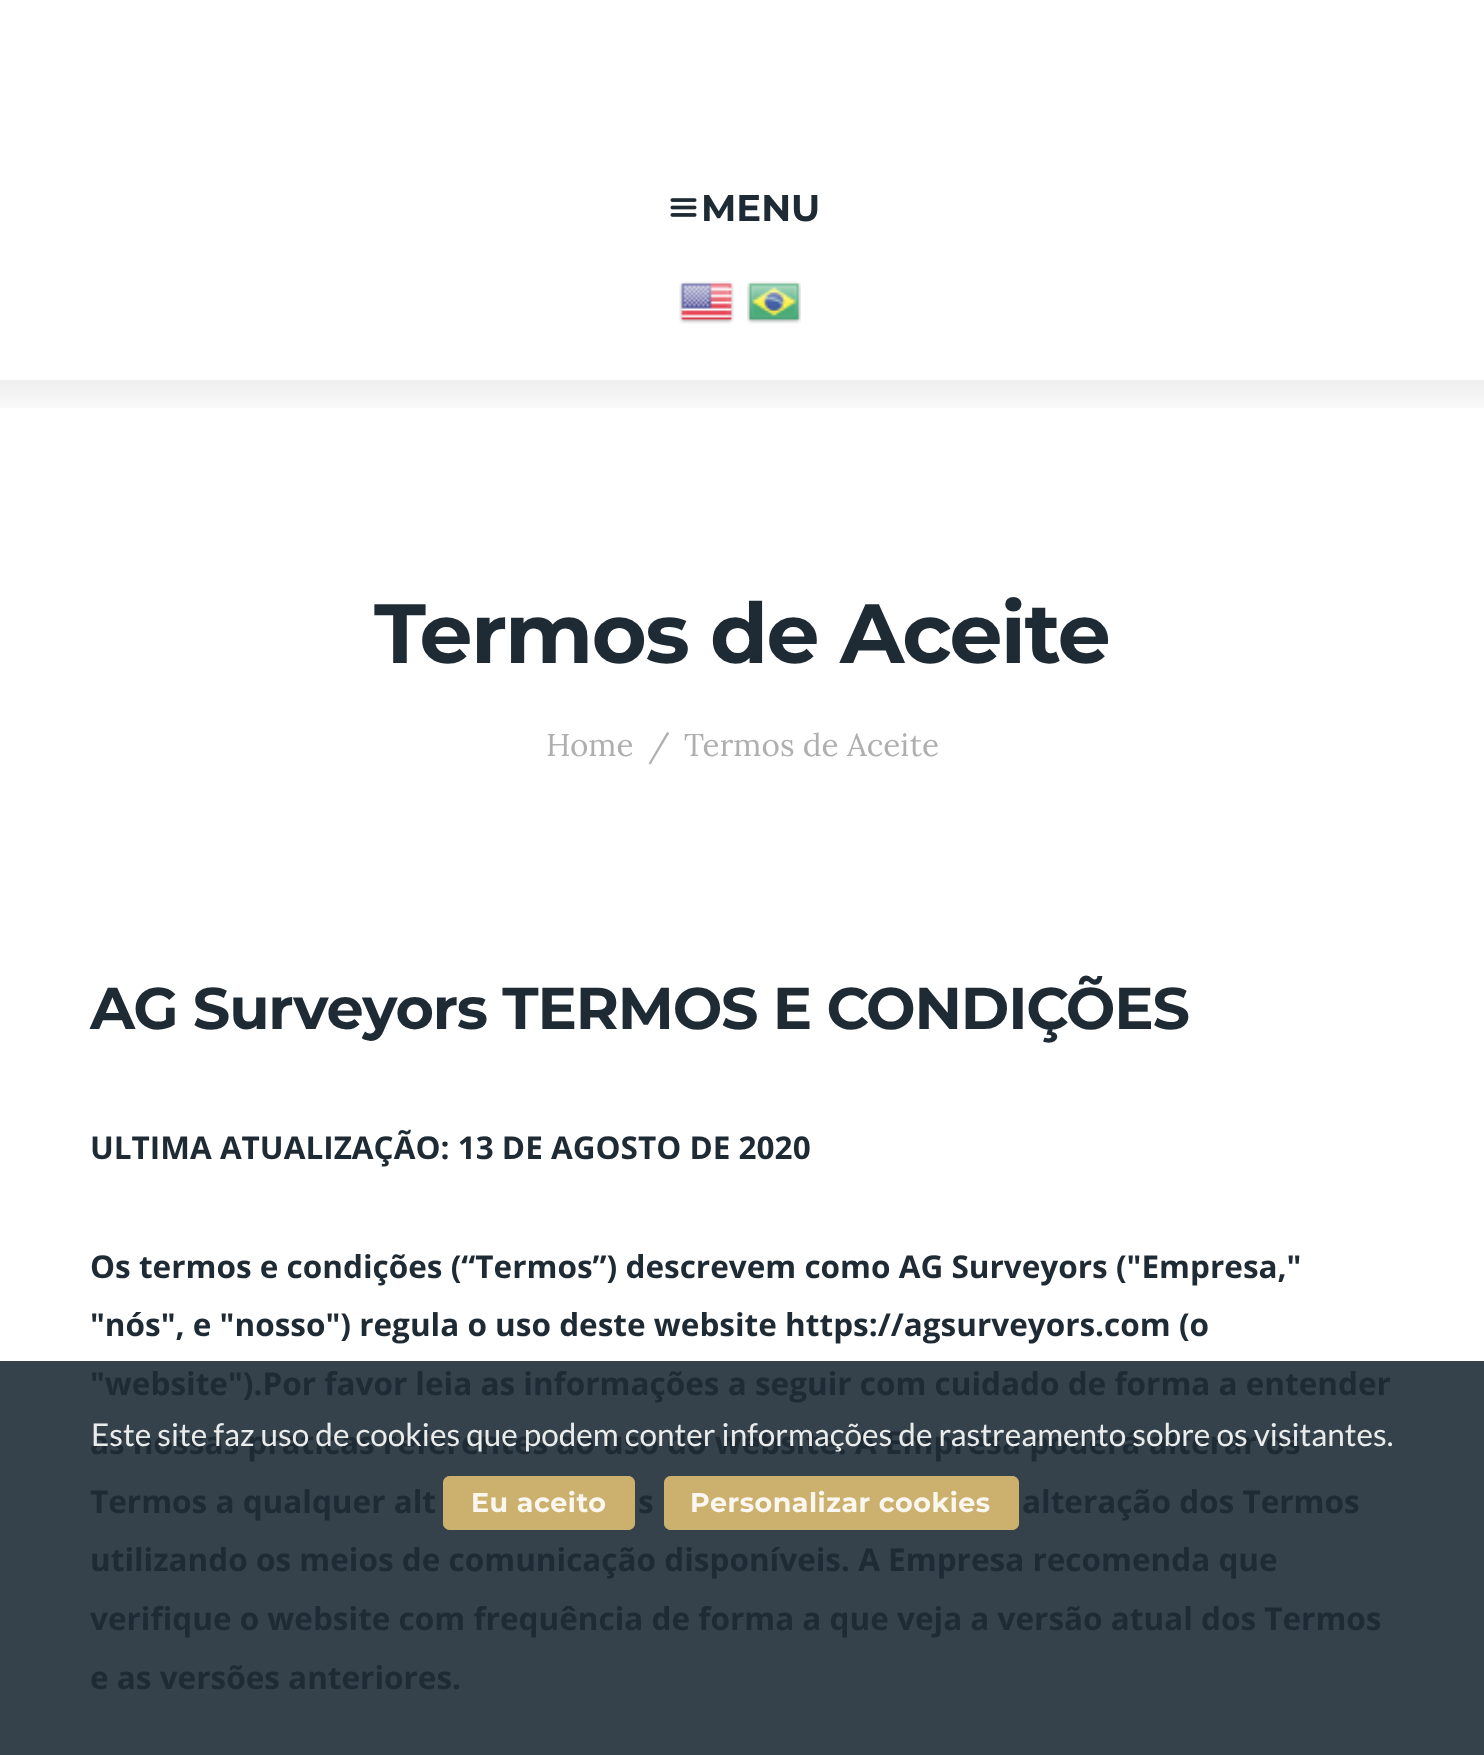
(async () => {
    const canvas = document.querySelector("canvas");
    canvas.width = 1484;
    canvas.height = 1755;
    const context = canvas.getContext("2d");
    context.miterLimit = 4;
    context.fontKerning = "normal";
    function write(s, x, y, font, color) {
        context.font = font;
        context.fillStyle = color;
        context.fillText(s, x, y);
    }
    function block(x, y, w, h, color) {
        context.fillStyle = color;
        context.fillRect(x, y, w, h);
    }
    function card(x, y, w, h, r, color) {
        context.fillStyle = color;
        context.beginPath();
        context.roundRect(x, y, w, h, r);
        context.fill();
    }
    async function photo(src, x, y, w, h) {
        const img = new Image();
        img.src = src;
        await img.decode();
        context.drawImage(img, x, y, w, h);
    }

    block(0, 0, 1484, 1755, "rgb(255, 255, 255)");
    block(0, 1361, 1484, 394, "rgb(53, 66, 75)");
    context.save();
    context.beginPath();
    context.rect(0, 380, 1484, 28);
    context.clip();
    context.fillStyle = "rgba(0, 0, 0, 0.06)";
    context.filter = "blur(11px)";
    context.beginPath();
    context.rect(-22, 23, 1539, 380);
    context.fill();
    context.filter = "none";
    context.restore();
    await photo("media/1.png", 670, 198, 27, 19);
    write("MENU", 701, 221, "bold 37px Montserrat", "rgb(30, 42, 52)");
    await photo("media/2.png", 679, 281, 55, 43);
    await photo("media/3.png", 747, 281, 54, 43);
    context.letterSpacing = "-1.7px";
    write("Termos de Aceite", 374, 663, "bold 84px Montserrat", "rgb(30, 42, 52)");
    context.letterSpacing = "0px";
    write("Home", 546, 756, "31.5px Lora", "rgb(175, 175, 175)");
    write("/", 648, 756, "31.5px Lora", "rgb(175, 175, 175)");
    write("Termos de Aceite", 684, 756, "31.5px Lora", "rgb(175, 175, 175)");
    context.letterSpacing = "-1.2px";
    write("AG Surveyors TERMOS E CONDIÇÕES", 90, 1029, "bold 58.8px Montserrat", "rgb(30, 42, 52)");
    context.letterSpacing = "0px";
    write("ULTIMA ATUALIZAÇÃO: 13 DE AGOSTO DE 2020", 90, 1159, "bold 31.5px Open Sans", "rgb(30, 42, 52)");
    write("Os termos e condições (“Termos”) descrevem como AG Surveyors (\"Empresa,\"", 90, 1278, "bold 31.5px Open Sans", "rgb(30, 42, 52)");
    write("\"nós\", e \"nosso\") regula o uso deste website https://agsurveyors.com (o", 90, 1336, "bold 31.5px Open Sans", "rgb(30, 42, 52)");
    write("\"website\").Por favor leia as informações a seguir com cuidado de forma a entender", 90, 1395, "bold 31.5px Open Sans", "rgb(30, 42, 52)");
    write("as nossas praticas referentes ao uso do website. A Empresa poderá alterar os", 90, 1454, "bold 31.5px Open Sans", "rgb(30, 42, 52)");
    write("Termos a qualquer alt", 90, 1513, "bold 31.5px Open Sans", "rgb(30, 42, 52)");
    write("s", 638, 1513, "bold 31.5px Open Sans", "rgb(30, 42, 52)");
    write("alteração dos Termos", 1022, 1513, "bold 31.5px Open Sans", "rgb(30, 42, 52)");
    write("utilizando os meios de comunicação disponíveis. A Empresa recomenda que", 90, 1571, "bold 31.5px Open Sans", "rgb(30, 42, 52)");
    write("verifique o website com frequência de forma a que veja a versão atual dos Termos", 90, 1630, "bold 31.5px Open Sans", "rgb(30, 42, 52)");
    write("e as versões anteriores.", 90, 1689, "bold 31.5px Open Sans", "rgb(30, 42, 52)");
    write("Este site faz uso de cookies que podem conter informações de rastreamento sobre os visitantes.", 91, 1446, "31.5px Lato", "rgb(234, 236, 236)");
    card(443, 1476, 192, 54, 7, "rgba(204, 179, 110, 0.9)");
    card(443, 1476, 192, 54, 7, "rgba(204, 179, 110, 0.9)");
    context.letterSpacing = "0.5px";
    write("Eu aceito", 471, 1512, "bold 27px Montserrat", "rgb(250, 247, 240)");
    card(664, 1476, 355, 54, 7, "rgba(204, 179, 110, 0.9)");
    card(664, 1476, 355, 54, 7, "rgba(204, 179, 110, 0.9)");
    write("Personalizar cookies", 690, 1512, "bold 27px Montserrat", "rgb(250, 247, 240)");
})();
